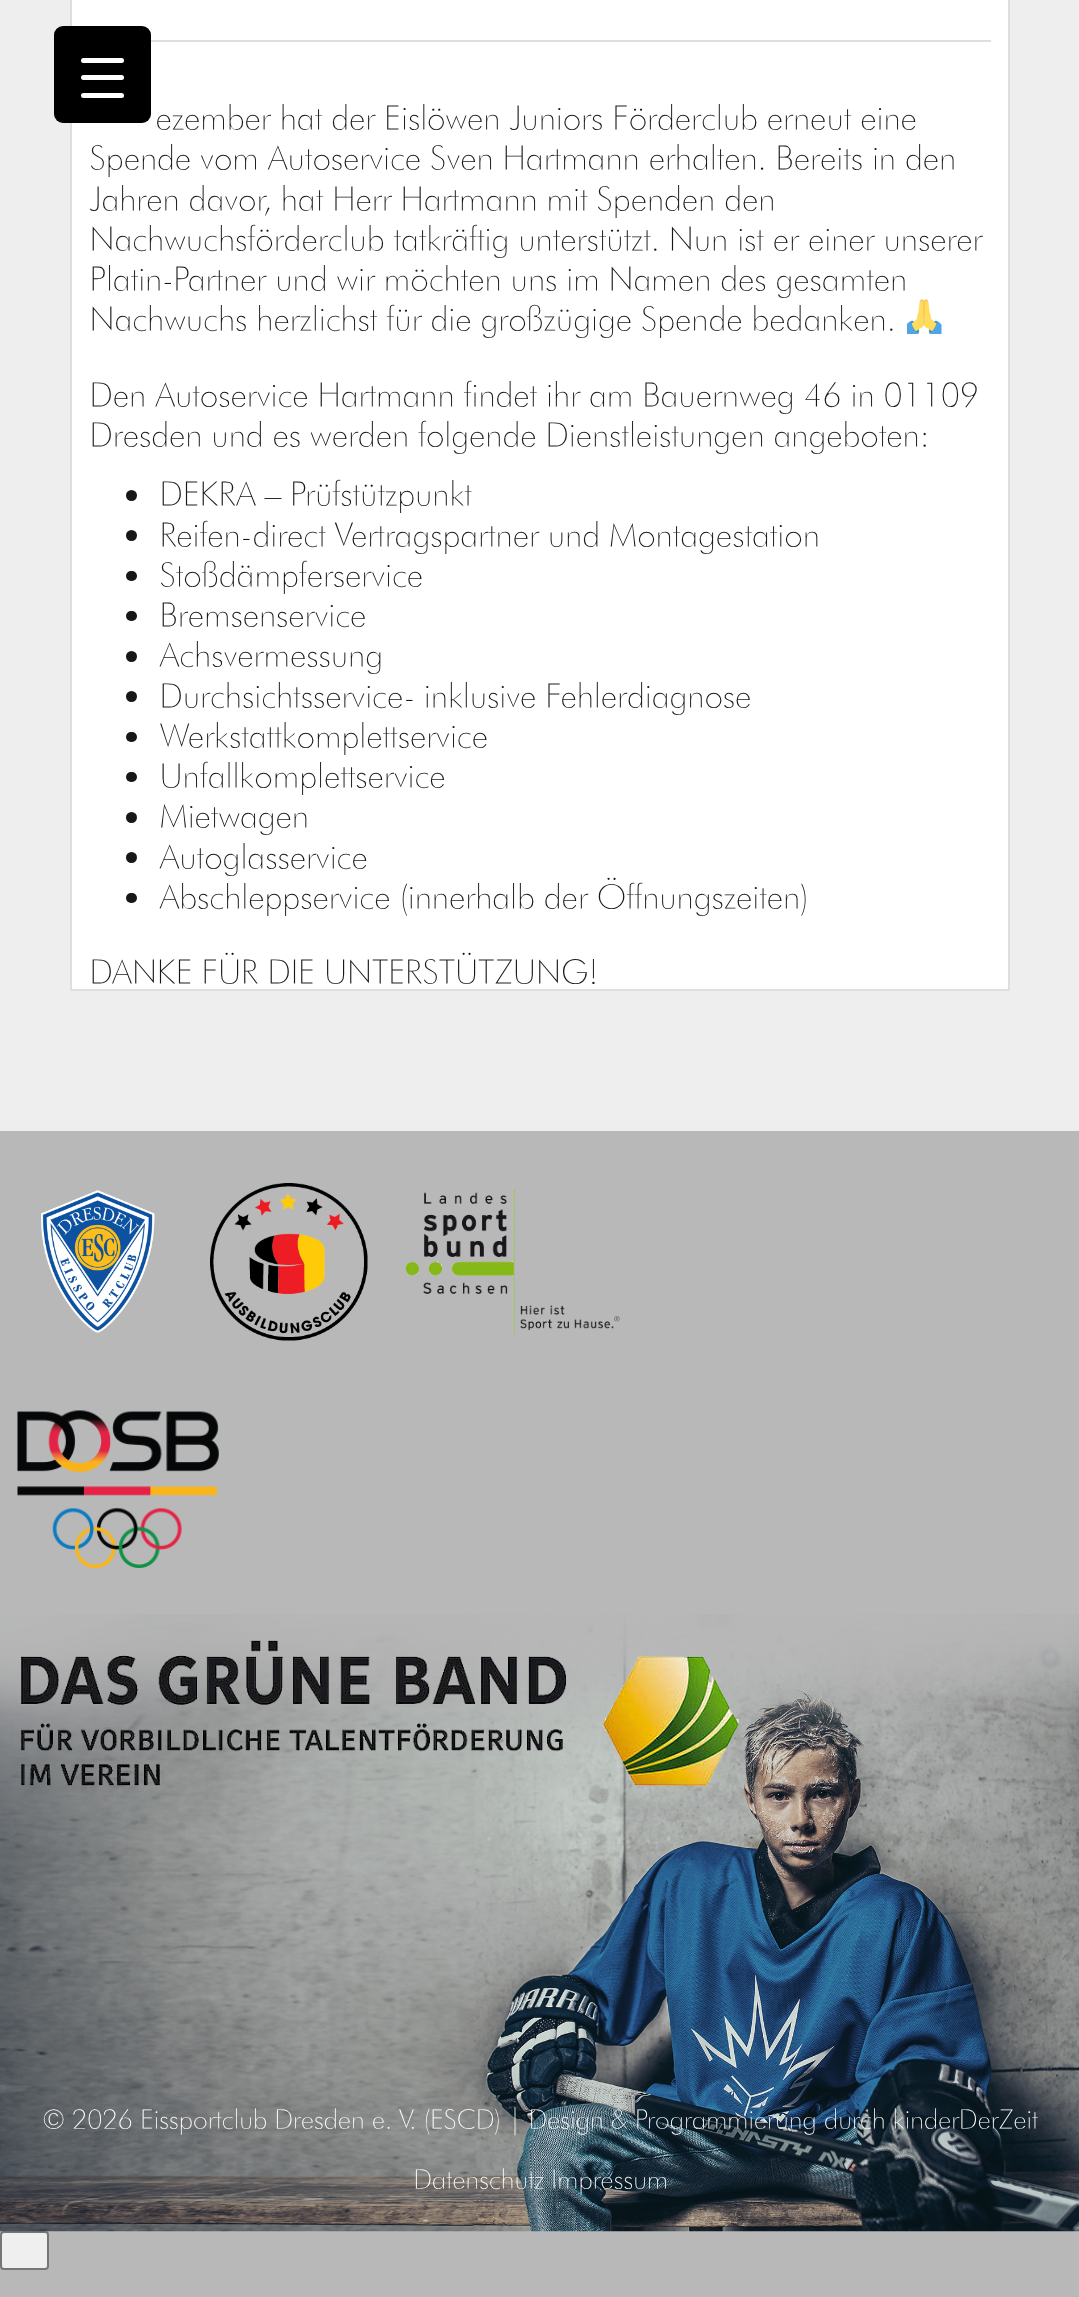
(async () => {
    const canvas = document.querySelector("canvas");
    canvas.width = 1079;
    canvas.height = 2297;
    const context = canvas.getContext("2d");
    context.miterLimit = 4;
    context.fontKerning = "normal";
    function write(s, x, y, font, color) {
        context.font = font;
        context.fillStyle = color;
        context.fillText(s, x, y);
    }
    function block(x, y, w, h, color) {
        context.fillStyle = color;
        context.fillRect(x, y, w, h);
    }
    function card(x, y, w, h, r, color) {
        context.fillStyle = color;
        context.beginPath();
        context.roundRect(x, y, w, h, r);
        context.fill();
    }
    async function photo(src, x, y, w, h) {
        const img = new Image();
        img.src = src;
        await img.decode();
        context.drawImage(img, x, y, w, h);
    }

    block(0, 0, 1079, 2297, "rgb(184, 184, 184)");
    block(0, 0, 1079, 1131, "rgb(238, 238, 238)");
    context.fillStyle = "rgb(255, 255, 255)";
    context.beginPath();
    context.rect(71, -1, 938, 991);
    context.fill();
    context.strokeStyle = "rgb(222, 222, 222)";
    context.lineWidth = 2;
    context.stroke();
    card(54, 26, 97, 97, 9, "rgb(0, 0, 0)");
    card(81, 75, 43, 5, 2.5, "rgb(255, 255, 255)");
    card(81, 58, 43, 5, 2.5, "rgb(255, 255, 255)");
    card(81, 93, 43, 5, 2.5, "rgb(255, 255, 255)");
    context.fillStyle = "rgb(239, 239, 239)";
    context.beginPath();
    context.roundRect(1, 2232, 47, 37, 3);
    context.fill();
    context.strokeStyle = "rgb(118, 118, 118)";
    context.stroke();
    await photo("media/1.png", 0, 1614, 1079, 618);
    block(151, 40, 840, 2, "rgb(222, 222, 222)");
    write("ezember hat der Eislöwen Juniors Förderclub erneut eine", 155, 130, "100 35px Futura", "rgb(23, 23, 23)");
    write("Spende vom Autoservice Sven Hartmann erhalten. Bereits in den", 89, 170, "100 35px Futura", "rgb(23, 23, 23)");
    write("Jahren davor, hat Herr Hartmann mit Spenden den", 89, 211, "100 35px Futura", "rgb(23, 23, 23)");
    write("Nachwuchsförderclub tatkräftig unterstützt. Nun ist er einer unserer", 89, 251, "100 35px Futura", "rgb(23, 23, 23)");
    write("Platin-Partner und wir möchten uns im Namen des gesamten", 89, 291, "100 35px Futura", "rgb(23, 23, 23)");
    write("Nachwuchs herzlichst für die großzügige Spende bedanken.", 89, 331, "100 35px Futura", "rgb(23, 23, 23)");
    await photo("media/2.png", 907, 299, 35, 35);
    write("Den Autoservice Hartmann findet ihr am Bauernweg 46 in 01109", 89, 407, "100 35px Futura", "rgb(23, 23, 23)");
    write("Dresden und es werden folgende Dienstleistungen angeboten:", 89, 447, "100 35px Futura", "rgb(23, 23, 23)");
    context.beginPath();
    context.arc(131.5, 495.5, 5.5, 0, Math.PI * 2);
    context.fill();
    write("DEKRA – Prüfstützpunkt", 159, 506, "100 35px Futura", "rgb(23, 23, 23)");
    context.beginPath();
    context.arc(131.5, 535.5, 5.5, 0, Math.PI * 2);
    context.fill();
    write("Reifen-direct Vertragspartner und Montagestation", 159, 547, "100 35px Futura", "rgb(23, 23, 23)");
    card(126, 571, 11, 10, 5, "rgb(23, 23, 23)");
    write("Stoßdämpferservice", 159, 587, "100 35px Futura", "rgb(23, 23, 23)");
    card(126, 611, 11, 10, 5, "rgb(23, 23, 23)");
    write("Bremsenservice", 159, 627, "100 35px Futura", "rgb(23, 23, 23)");
    context.beginPath();
    context.arc(131.5, 656.5, 5.5, 0, Math.PI * 2);
    context.fill();
    write("Achsvermessung", 159, 667, "100 35px Futura", "rgb(23, 23, 23)");
    context.beginPath();
    context.arc(131.5, 696.5, 5.5, 0, Math.PI * 2);
    context.fill();
    write("Durchsichtsservice- inklusive Fehlerdiagnose", 159, 708, "100 35px Futura", "rgb(23, 23, 23)");
    card(126, 732, 11, 10, 5, "rgb(23, 23, 23)");
    write("Werkstattkomplettservice", 159, 748, "100 35px Futura", "rgb(23, 23, 23)");
    card(126, 772, 11, 10, 5, "rgb(23, 23, 23)");
    write("Unfallkomplettservice", 159, 788, "100 35px Futura", "rgb(23, 23, 23)");
    context.beginPath();
    context.arc(131.5, 817.5, 5.5, 0, Math.PI * 2);
    context.fill();
    write("Mietwagen", 159, 828, "100 35px Futura", "rgb(23, 23, 23)");
    context.beginPath();
    context.arc(131.5, 857.5, 5.5, 0, Math.PI * 2);
    context.fill();
    write("Autoglasservice", 159, 869, "100 35px Futura", "rgb(23, 23, 23)");
    card(126, 893, 11, 10, 5, "rgb(23, 23, 23)");
    write("Abschleppservice (innerhalb der Öffnungszeiten)", 159, 909, "100 35px Futura", "rgb(23, 23, 23)");
    write("DANKE FÜR DIE UNTERSTÜTZUNG!", 89, 984, "100 35px Futura", "rgb(23, 23, 23)");
    await photo("media/3.png", 41, 1190, 114, 143);
    await photo("media/4.png", 210, 1183, 158, 158);
    await photo("media/5.png", 405, 1187, 215, 149);
    await photo("media/6.png", 17, 1410, 202, 158);
    await photo("media/7.png", 20, 1640, 719, 146);
    write("© 2026 Eissportclub Dresden e. V. (ESCD) | Design & Programmierung durch kinderDerZeit", 42, 2129, "100 28px Futura", "rgb(255, 255, 255)");
    write("Datenschutz Impressum", 413, 2189, "100 28px Futura", "rgb(255, 255, 255)");
})();
